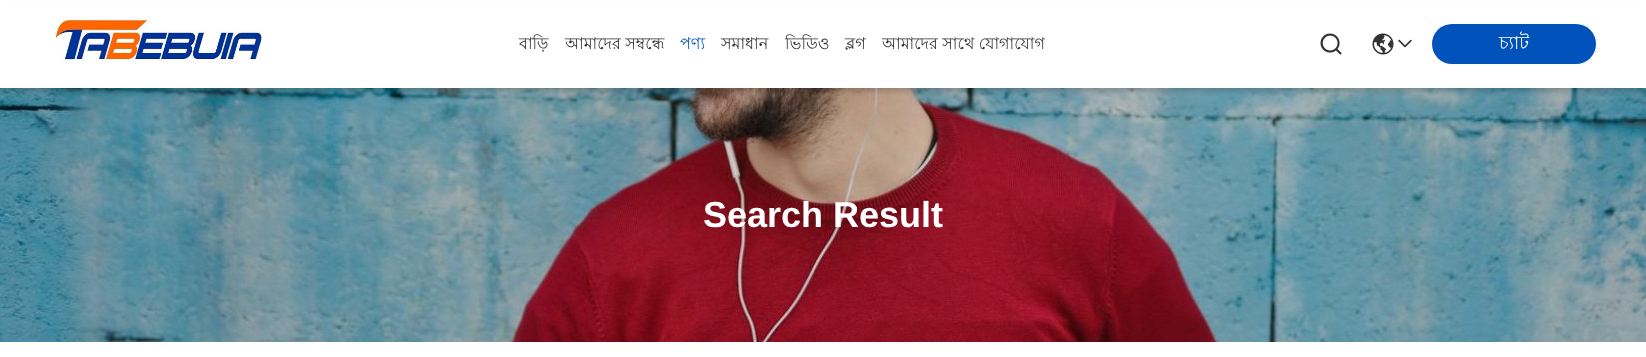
(async () => {
    const canvas = document.querySelector("canvas");
    canvas.width = 1646;
    canvas.height = 357;
    const context = canvas.getContext("2d");
    context.miterLimit = 4;
    context.fontKerning = "normal";
    function write(s, x, y, font, color) {
        context.font = font;
        context.fillStyle = color;
        context.fillText(s, x, y);
    }
    function block(x, y, w, h, color) {
        context.fillStyle = color;
        context.fillRect(x, y, w, h);
    }
    function card(x, y, w, h, r, color) {
        context.fillStyle = color;
        context.beginPath();
        context.roundRect(x, y, w, h, r);
        context.fill();
    }
    async function photo(src, x, y, w, h) {
        const img = new Image();
        img.src = src;
        await img.decode();
        context.drawImage(img, x, y, w, h);
    }

    block(0, 0, 1646, 357, "rgb(255, 255, 255)");
    await photo("media/5.png", 0, 88, 1646, 254);
    context.fillStyle = "rgba(0, 0, 0, 0.15)";
    context.filter = "blur(2px)";
    context.beginPath();
    context.rect(0, 4, 1646, 88);
    context.fill();
    context.filter = "none";
    block(0, 1, 1646, 87, "rgb(255, 255, 255)");
    await photo("media/1.png", 50, 14, 213, 49);
    write("বাড়ি", 519, 49, "16px Lohit Bengali", "rgb(50, 50, 50)");
    write("আমাদের সম্বন্ধে", 565, 49, "16px Lohit Bengali", "rgb(50, 50, 50)");
    write("পণ্য", 680, 49, "16px Lohit Bengali", "rgb(2, 82, 187)");
    write("সমাধান", 721, 49, "16px Lohit Bengali", "rgb(50, 50, 50)");
    write("ভিডিও", 785, 49, "16px Lohit Bengali", "rgb(50, 50, 50)");
    write("ব্লগ", 845, 49, "16px Lohit Bengali", "rgb(50, 50, 50)");
    write("আমাদের সাথে যোগাযোগ", 882, 49, "16px Lohit Bengali", "rgb(50, 50, 50)");
    await photo("media/2.png", 1320, 33, 22, 22);
    await photo("media/3.png", 1372, 33, 22, 22);
    await photo("media/4.png", 1398, 39, 14, 9);
    card(1432, 24, 164, 40, 20, "rgb(2, 82, 187)");
    write("চ্যাট", 1499, 49, "18px Lohit Bengali", "rgb(255, 255, 255)");
    write("Search Result", 703, 227, "bold 36px Liberation Sans", "rgb(255, 255, 255)");
})();
